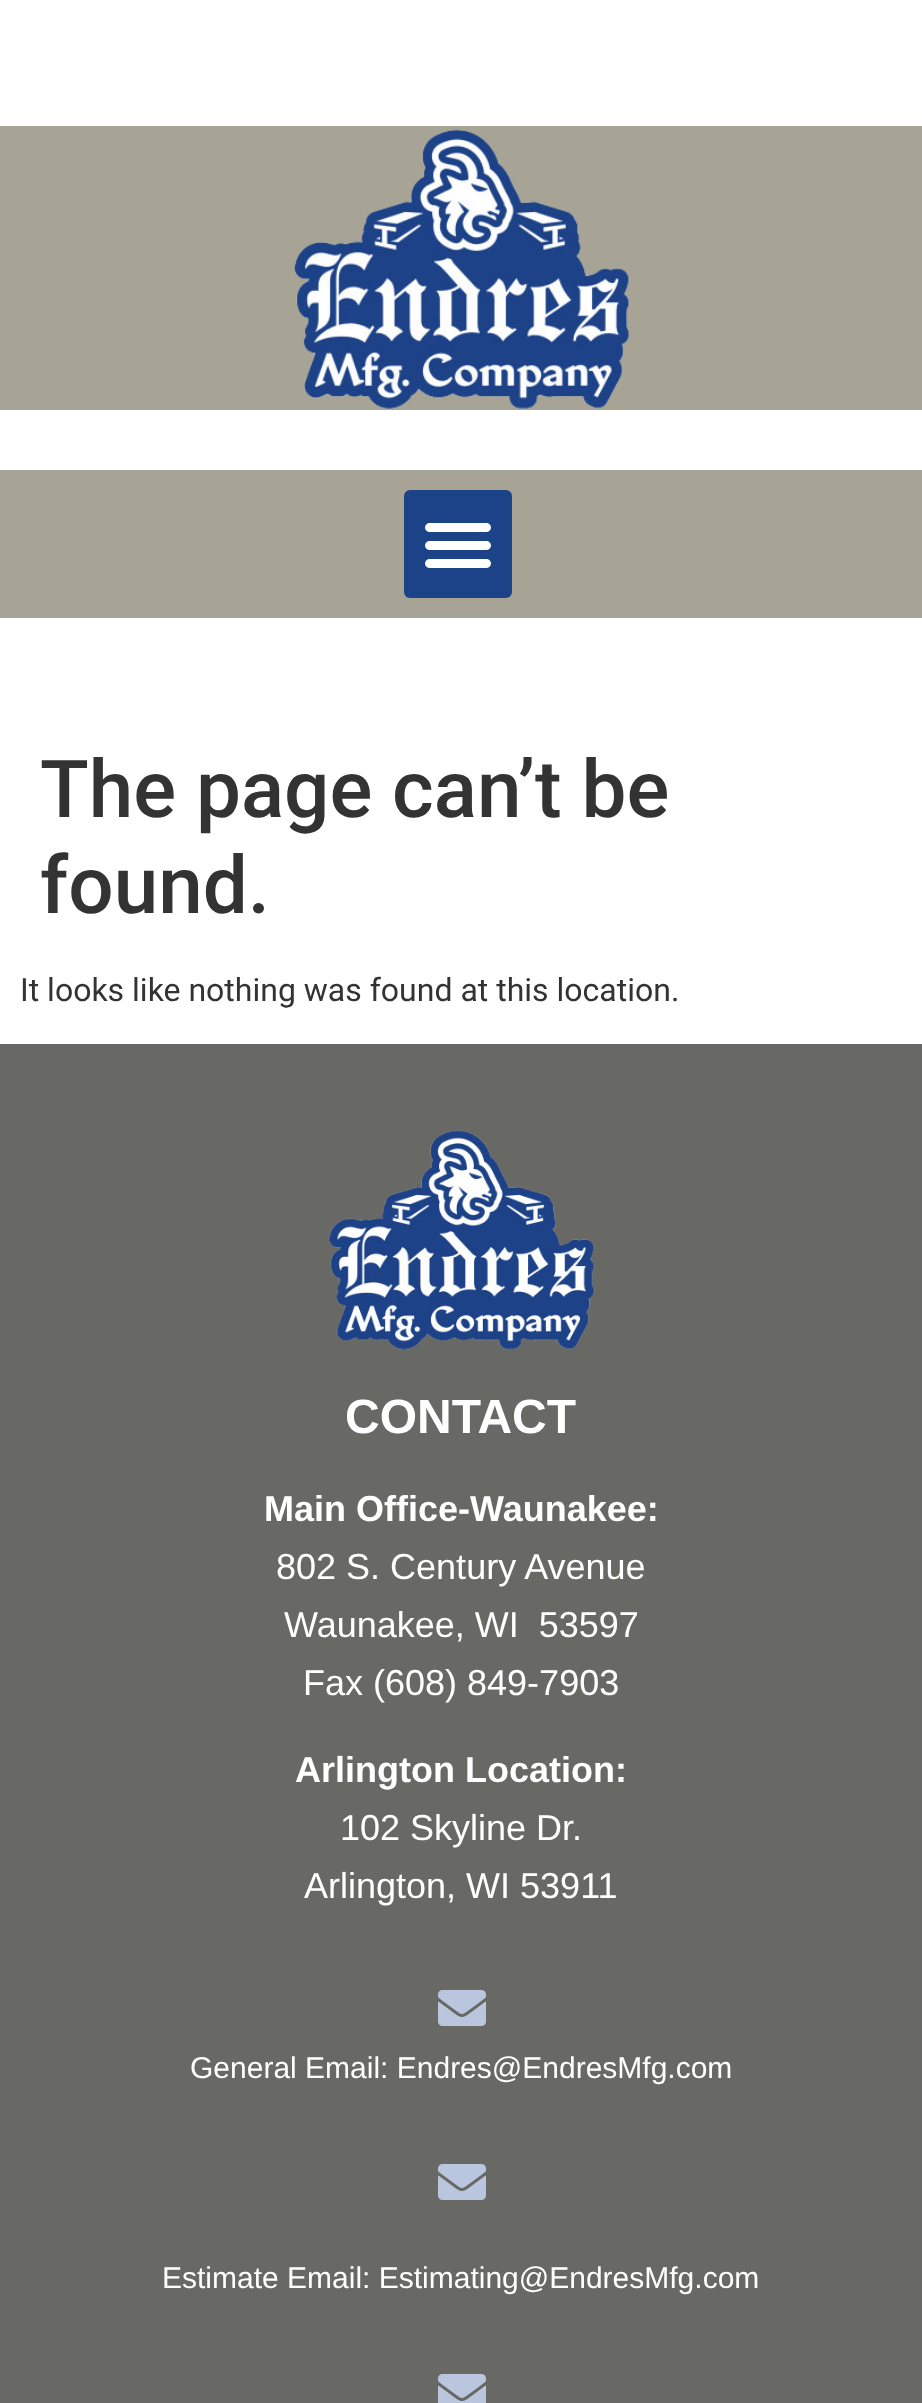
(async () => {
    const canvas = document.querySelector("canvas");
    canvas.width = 922;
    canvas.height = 2403;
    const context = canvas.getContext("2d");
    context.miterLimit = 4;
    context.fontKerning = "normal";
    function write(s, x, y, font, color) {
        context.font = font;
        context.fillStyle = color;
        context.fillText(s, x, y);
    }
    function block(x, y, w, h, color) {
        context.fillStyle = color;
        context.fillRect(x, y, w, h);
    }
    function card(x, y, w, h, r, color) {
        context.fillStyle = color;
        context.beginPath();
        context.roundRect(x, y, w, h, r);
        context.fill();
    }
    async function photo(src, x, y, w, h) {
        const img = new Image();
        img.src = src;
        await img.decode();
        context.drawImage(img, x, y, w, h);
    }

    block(0, 0, 922, 2403, "rgb(255, 255, 255)");
    block(0, 126, 922, 284, "rgb(167, 164, 149)");
    await photo("media/1.png", 294, 129, 336, 280);
    block(0, 470, 922, 148, "rgb(167, 164, 149)");
    card(404, 490, 108, 108, 6, "rgb(28, 66, 135)");
    await photo("media/2.png", 425, 523, 66, 45);
    write("The page can’t be", 40, 817, "500 80px Roboto", "rgb(51, 51, 51)");
    write("found.", 40, 913, "500 80px Roboto", "rgb(51, 51, 51)");
    write("It looks like nothing was found at this location.", 20, 1001, "32px Roboto", "rgb(51, 51, 51)");
    block(0, 1044, 922, 1359, "rgb(104, 104, 100)");
    await photo("media/3.png", 328, 1130, 267, 220);
    write("CONTACT", 345, 1433, "bold 48px Liberation Sans", "rgb(255, 255, 255)");
    write("Main Office-Waunakee:", 264, 1521, "bold 36px Liberation Sans", "rgb(255, 255, 255)");
    write("802 S. Century Avenue", 276, 1579, "36px Liberation Sans", "rgb(255, 255, 255)");
    write("Waunakee, WI  53597", 284, 1637, "36px Liberation Sans", "rgb(255, 255, 255)");
    write("Fax (608) 849-7903", 303, 1695, "36px Liberation Sans", "rgb(255, 255, 255)");
    write("Arlington Location:", 295, 1782, "bold 36px Liberation Sans", "rgb(255, 255, 255)");
    write("102 Skyline Dr.", 340, 1840, "36px Liberation Sans", "rgb(255, 255, 255)");
    write("Arlington, WI 53911", 304, 1898, "36px Liberation Sans", "rgb(255, 255, 255)");
    await photo("media/4.png", 438, 1990, 48, 36);
    write("General Email: Endres@EndresMfg.com", 190, 2078, "30px Liberation Sans", "rgb(255, 255, 255)");
    await photo("media/4.png", 438, 2164, 48, 36);
    write("Estimate Email: Estimating@EndresMfg.com", 162, 2288, "30px Liberation Sans", "rgb(255, 255, 255)");
    await photo("media/5.png", 438, 2374, 48, 29);
})();
